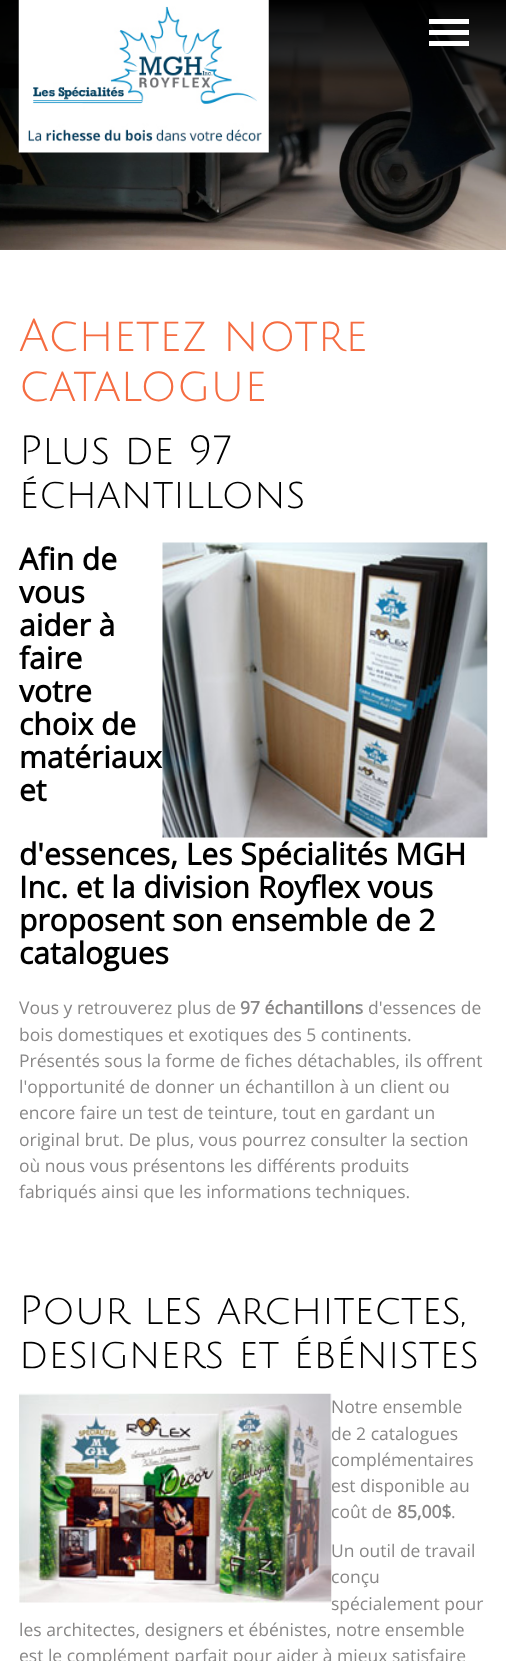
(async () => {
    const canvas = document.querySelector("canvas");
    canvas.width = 506;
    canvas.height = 1661;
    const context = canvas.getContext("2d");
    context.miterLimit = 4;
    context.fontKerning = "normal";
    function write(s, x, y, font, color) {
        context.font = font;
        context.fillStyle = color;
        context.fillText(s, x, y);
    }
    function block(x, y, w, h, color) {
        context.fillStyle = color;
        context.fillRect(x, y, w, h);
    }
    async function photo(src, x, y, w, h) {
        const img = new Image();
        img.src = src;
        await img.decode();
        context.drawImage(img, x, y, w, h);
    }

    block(0, 0, 506, 1661, "rgb(255, 255, 255)");
    await photo("media/1.png", 0, 0, 506, 250);
    await photo("media/2.png", 18, 0, 251, 153);
    block(429, 19, 40, 5, "rgb(255, 255, 255)");
    block(429, 30, 40, 5, "rgb(255, 255, 255)");
    block(429, 41, 40, 5, "rgb(255, 255, 255)");
    write("Achetez notre", 19, 351, "45px Julius Sans One", "rgb(245, 108, 65)");
    write("catalogue", 19, 401, "45px Julius Sans One", "rgb(245, 108, 65)");
    write("Plus de 97", 19, 464, "40px Julius Sans One", "rgb(0, 0, 0)");
    write("échantillons", 19, 508, "40px Julius Sans One", "rgb(0, 0, 0)");
    write("Afin de", 19, 570, "bold 30px Open Sans", "rgb(0, 0, 0)");
    await photo("media/3.png", 162, 542, 326, 296);
    write("vous", 19, 603, "bold 30px Open Sans", "rgb(0, 0, 0)");
    write("aider à", 19, 636, "bold 30px Open Sans", "rgb(0, 0, 0)");
    write("faire", 19, 669, "bold 30px Open Sans", "rgb(0, 0, 0)");
    write("votre", 19, 702, "bold 30px Open Sans", "rgb(0, 0, 0)");
    write("choix de", 19, 735, "bold 30px Open Sans", "rgb(0, 0, 0)");
    write("matériaux", 19, 768, "bold 30px Open Sans", "rgb(0, 0, 0)");
    write("et", 19, 801, "bold 30px Open Sans", "rgb(0, 0, 0)");
    write("d'essences, Les Spécialités MGH", 19, 865, "bold 30px Open Sans", "rgb(0, 0, 0)");
    write("Inc. et la division Royflex vous", 19, 898, "bold 30px Open Sans", "rgb(0, 0, 0)");
    write("proposent son ensemble de 2", 19, 931, "bold 30px Open Sans", "rgb(0, 0, 0)");
    write("catalogues", 19, 964, "bold 30px Open Sans", "rgb(0, 0, 0)");
    write("Vous y retrouverez plus de", 19, 1014, "17.5px Open Sans", "rgb(136, 135, 135)");
    write("97 échantillons", 240, 1014, "bold 17.5px Open Sans", "rgb(136, 135, 135)");
    write("d'essences de", 368, 1014, "17.5px Open Sans", "rgb(136, 135, 135)");
    write("bois domestiques et exotiques des 5 continents.", 19, 1041, "17.5px Open Sans", "rgb(136, 135, 135)");
    write("Présentés sous la forme de fiches détachables, ils offrent", 19, 1067, "17.5px Open Sans", "rgb(136, 135, 135)");
    write("l'opportunité de donner un échantillon à un client ou", 19, 1093, "17.5px Open Sans", "rgb(136, 135, 135)");
    write("encore faire un test de teinture, tout en gardant un", 19, 1119, "17.5px Open Sans", "rgb(136, 135, 135)");
    write("original brut. De plus, vous pourrez consulter la section", 19, 1146, "17.5px Open Sans", "rgb(136, 135, 135)");
    write("où nous vous présentons les différents produits", 19, 1172, "17.5px Open Sans", "rgb(136, 135, 135)");
    write("fabriqués ainsi que les informations techniques.", 19, 1198, "17.5px Open Sans", "rgb(136, 135, 135)");
    write("Pour les architectes,", 19, 1324, "40px Julius Sans One", "rgb(0, 0, 0)");
    write("designers et ébénistes", 19, 1368, "40px Julius Sans One", "rgb(0, 0, 0)");
    await photo("media/4.png", 19, 1393, 313, 210);
    write("Notre ensemble", 331, 1413, "17.5px Open Sans", "rgb(136, 135, 135)");
    write("de 2 catalogues", 331, 1440, "17.5px Open Sans", "rgb(136, 135, 135)");
    write("complémentaires", 331, 1466, "17.5px Open Sans", "rgb(136, 135, 135)");
    write("est disponible au", 331, 1492, "17.5px Open Sans", "rgb(136, 135, 135)");
    write("coût de", 331, 1518, "17.5px Open Sans", "rgb(136, 135, 135)");
    write("85,00$", 397, 1518, "bold 17.5px Open Sans", "rgb(136, 135, 135)");
    write(".", 451, 1518, "17.5px Open Sans", "rgb(136, 135, 135)");
    write("Un outil de travail", 331, 1557, "17.5px Open Sans", "rgb(136, 135, 135)");
    write("conçu", 331, 1583, "17.5px Open Sans", "rgb(136, 135, 135)");
    write("spécialement pour", 331, 1610, "17.5px Open Sans", "rgb(136, 135, 135)");
    write("les architectes, designers et ébénistes, notre ensemble", 19, 1636, "17.5px Open Sans", "rgb(136, 135, 135)");
    write("est le complément parfait pour aider à mieux satisfaire", 19, 1662, "17.5px Open Sans", "rgb(136, 135, 135)");
})();
